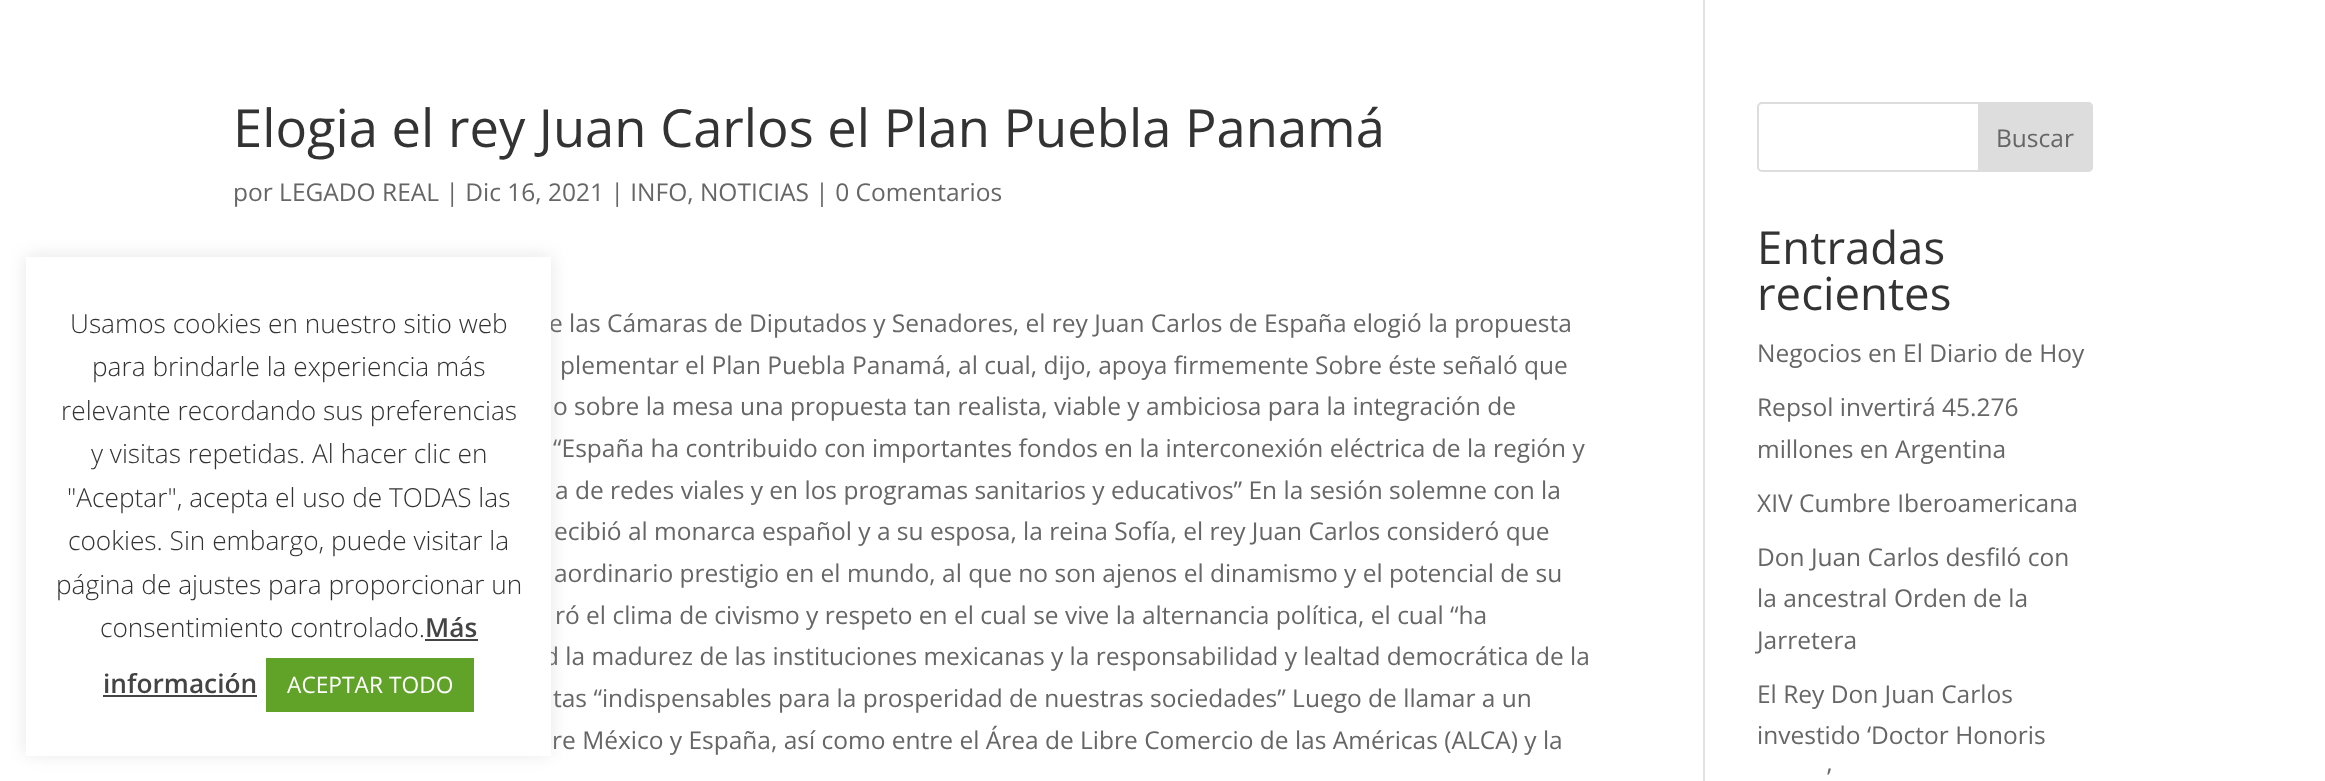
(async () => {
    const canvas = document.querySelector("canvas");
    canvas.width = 2325;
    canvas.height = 781;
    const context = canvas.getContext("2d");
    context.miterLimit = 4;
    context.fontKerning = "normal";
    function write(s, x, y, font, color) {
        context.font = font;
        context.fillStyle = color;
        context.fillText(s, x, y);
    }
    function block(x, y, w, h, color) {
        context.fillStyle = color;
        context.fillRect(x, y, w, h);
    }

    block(0, 0, 2325, 781, "rgb(255, 255, 255)");
    block(1703, 0, 2, 781, "rgb(226, 226, 226)");
    write("Elogia el rey Juan Carlos el Plan Puebla Panamá", 233, 147, "52.5px Open Sans", "rgb(51, 51, 51)");
    write("por LEGADO REAL | Dic 16, 2021 | INFO, NOTICIAS | 0 Comentarios", 233, 201, "24.5px Open Sans", "rgb(102, 102, 102)");
    write("e las Cámaras de Diputados y Senadores, el rey Juan Carlos de España elogió la propuesta", 549, 332, "24.5px Open Sans", "rgb(102, 102, 102)");
    write("plementar el Plan Puebla Panamá, al cual, dijo, apoya firmemente Sobre éste señaló que", 560, 374, "24.5px Open Sans", "rgb(102, 102, 102)");
    write("o sobre la mesa una propuesta tan realista, viable y ambiciosa para la integración de", 553, 415, "24.5px Open Sans", "rgb(102, 102, 102)");
    write("“España ha contribuido con importantes fondos en la interconexión eléctrica de la región y", 553, 457, "24.5px Open Sans", "rgb(102, 102, 102)");
    write("a de redes viales y en los programas sanitarios y educativos” En la sesión solemne con la", 555, 499, "24.5px Open Sans", "rgb(102, 102, 102)");
    write("ecibió al monarca español y a su esposa, la reina Sofía, el rey Juan Carlos consideró que", 554, 540, "24.5px Open Sans", "rgb(102, 102, 102)");
    write("aordinario prestigio en el mundo, al que no son ajenos el dinamismo y el potencial de su", 554, 582, "24.5px Open Sans", "rgb(102, 102, 102)");
    write("ró el clima de civismo y respeto en el cual se vive la alternancia política, el cual “ha", 555, 624, "24.5px Open Sans", "rgb(102, 102, 102)");
    write("d la madurez de las instituciones mexicanas y la responsabilidad y lealtad democrática de la", 544, 665, "24.5px Open Sans", "rgb(102, 102, 102)");
    write("tas “indispensables para la prosperidad de nuestras sociedades” Luego de llamar a un", 553, 707, "24.5px Open Sans", "rgb(102, 102, 102)");
    write("re México y España, así como entre el Área de Libre Comercio de las Américas (ALCA) y la", 552, 749, "24.5px Open Sans", "rgb(102, 102, 102)");
    context.beginPath();
    context.roundRect(1758, 103, 334, 68, 4);
    context.strokeStyle = "rgb(221, 221, 221)";
    context.lineWidth = 2;
    context.stroke();
    context.fillStyle = "rgb(221, 221, 221)";
    context.beginPath();
    context.roundRect(1979, 103, 113, 68, [0, 4, 4, 0]);
    context.fill();
    context.stroke();
    write("Buscar", 1996, 147, "24.5px Open Sans", "rgb(102, 102, 102)");
    write("Entradas", 1757, 264, "45.5px Open Sans", "rgb(51, 51, 51)");
    write("recientes", 1757, 310, "45.5px Open Sans", "rgb(51, 51, 51)");
    write("Negocios en El Diario de Hoy", 1757, 362, "24.5px Open Sans", "rgb(102, 102, 102)");
    write("Repsol invertirá 45.276", 1757, 416, "24.5px Open Sans", "rgb(102, 102, 102)");
    write("millones en Argentina", 1757, 458, "24.5px Open Sans", "rgb(102, 102, 102)");
    write("XIV Cumbre Iberoamericana", 1757, 512, "24.5px Open Sans", "rgb(102, 102, 102)");
    write("Don Juan Carlos desfiló con", 1757, 566, "24.5px Open Sans", "rgb(102, 102, 102)");
    write("la ancestral Orden de la", 1757, 607, "24.5px Open Sans", "rgb(102, 102, 102)");
    write("Jarretera", 1757, 649, "24.5px Open Sans", "rgb(102, 102, 102)");
    write("El Rey Don Juan Carlos", 1757, 703, "24.5px Open Sans", "rgb(102, 102, 102)");
    write("investido ‘Doctor Honoris", 1757, 744, "24.5px Open Sans", "rgb(102, 102, 102)");
    write("’", 1827, 786, "24.5px Open Sans", "rgb(102, 102, 102)");
    context.fillStyle = "rgba(172, 171, 171, 0.3)";
    context.filter = "blur(9px)";
    context.beginPath();
    context.rect(26, 256, 525, 498);
    context.fill();
    context.filter = "none";
    block(26, 257, 525, 499, "rgb(255, 255, 255)");
    write("Usamos cookies en nuestro sitio web", 70, 333, "300 26.25px Open Sans", "rgb(51, 51, 51)");
    write("para brindarle la experiencia más", 92, 376, "300 26.25px Open Sans", "rgb(51, 51, 51)");
    write("relevante recordando sus preferencias", 61, 420, "300 26.25px Open Sans", "rgb(51, 51, 51)");
    write("y visitas repetidas. Al hacer clic en", 91, 463, "300 26.25px Open Sans", "rgb(51, 51, 51)");
    write("\"Aceptar\", acepta el uso de TODAS las", 67, 507, "300 26.25px Open Sans", "rgb(51, 51, 51)");
    write("cookies. Sin embargo, puede visitar la", 68, 550, "300 26.25px Open Sans", "rgb(51, 51, 51)");
    write("página de ajustes para proporcionar un", 56, 594, "300 26.25px Open Sans", "rgb(51, 51, 51)");
    write("consentimiento controlado.", 100, 637, "300 26.25px Open Sans", "rgb(51, 51, 51)");
    write("Más", 425, 637, "600 26.25px Open Sans", "rgb(68, 68, 68)");
    block(425, 639, 53, 2, "rgb(68, 68, 68)");
    write("información", 103, 693, "600 26.25px Open Sans", "rgb(68, 68, 68)");
    block(103, 695, 154, 2, "rgb(68, 68, 68)");
    block(266, 658, 208, 54, "rgb(97, 162, 41)");
    write("ACEPTAR TODO", 287, 693, "22.75px Open Sans", "rgb(255, 255, 255)");
})();
